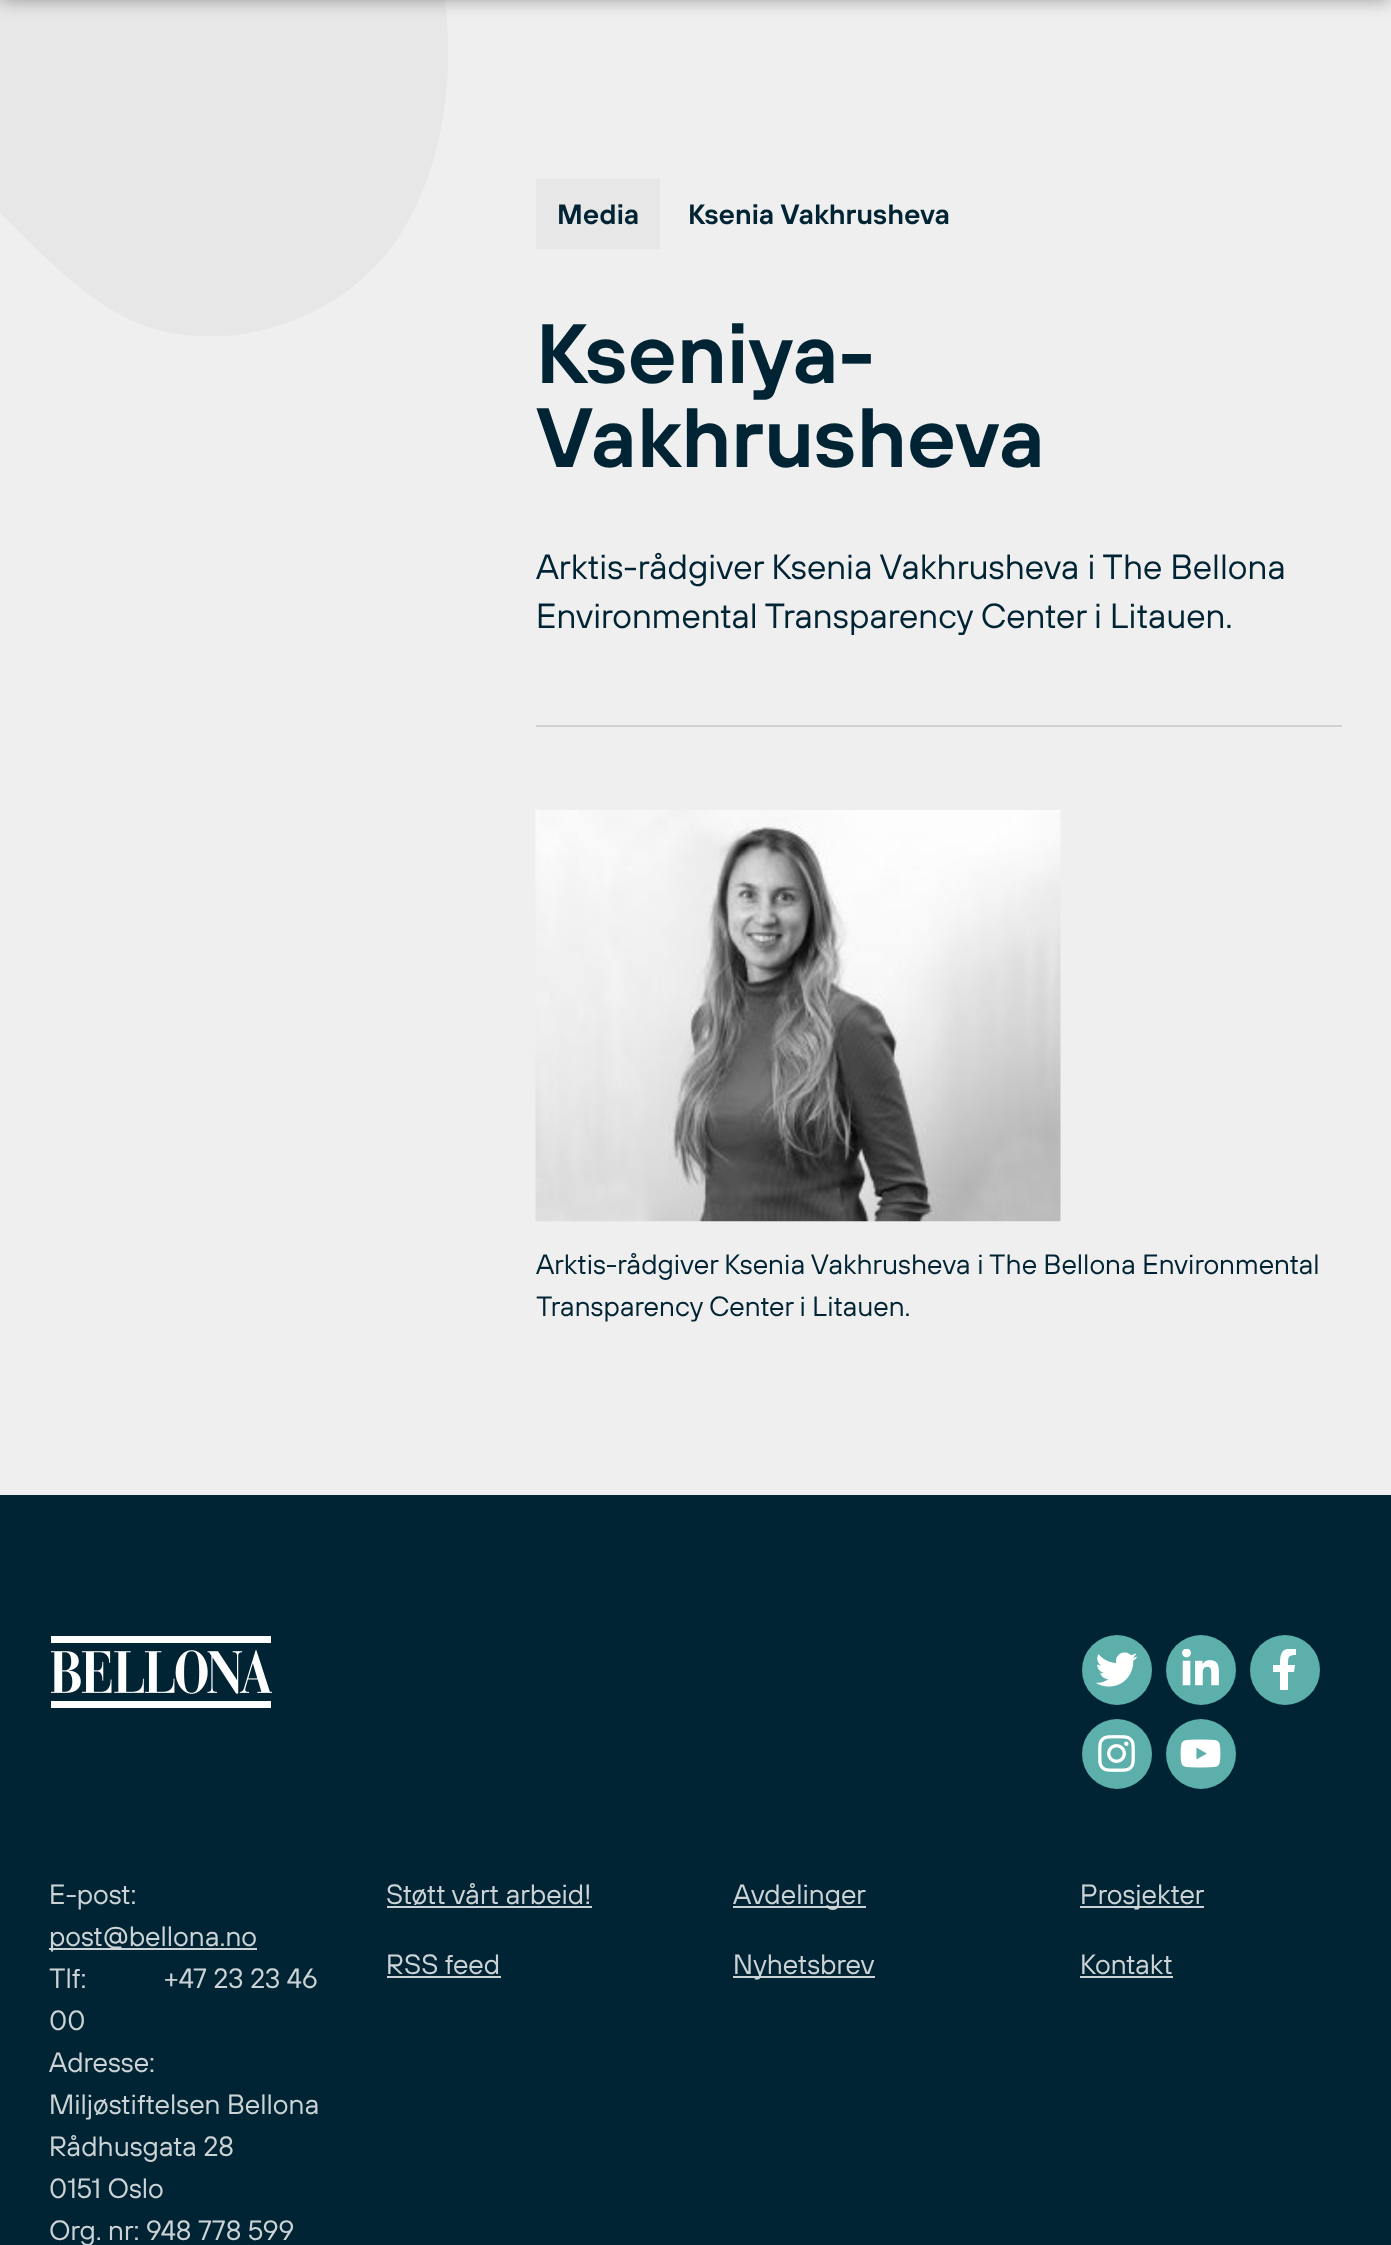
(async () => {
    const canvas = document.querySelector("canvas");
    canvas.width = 1391;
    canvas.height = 2245;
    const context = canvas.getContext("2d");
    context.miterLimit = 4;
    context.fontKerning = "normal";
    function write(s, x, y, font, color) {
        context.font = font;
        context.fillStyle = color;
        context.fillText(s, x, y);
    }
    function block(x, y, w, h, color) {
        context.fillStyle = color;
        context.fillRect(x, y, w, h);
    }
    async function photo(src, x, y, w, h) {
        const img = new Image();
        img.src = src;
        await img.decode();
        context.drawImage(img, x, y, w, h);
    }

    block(0, 0, 1391, 2245, "rgb(239, 239, 239)");
    context.save();
    context.beginPath();
    context.rect(0, 0, 448, 336);
    context.clip();
    context.fillStyle = "rgb(231, 231, 231)";
    context.beginPath();
    context.moveTo(375, -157);
    context.bezierCurveTo(470, -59, 471, 146, 388, 252);
    context.bezierCurveTo(358, 289, 316, 316, 270, 328);
    context.bezierCurveTo(228, 340, 181, 340, 140, 324);
    context.bezierCurveTo(84, 301, 42, 254, 0, 213);
    context.lineTo(0, -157);
    context.closePath();
    context.fill("evenodd");
    context.restore();
    context.fillStyle = "rgba(0, 0, 0, 0.35)";
    context.filter = "blur(9px)";
    context.beginPath();
    context.rect(0, -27, 1391, 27);
    context.fill();
    context.filter = "none";
    block(536, 179, 124, 70, "rgb(231, 231, 231)");
    write("Media", 557, 224, "600 28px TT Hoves", "rgb(0, 36, 51)");
    write("Ksenia Vakhrusheva", 688, 224, "600 28px TT Hoves", "rgb(0, 36, 51)");
    write("Kseniya-", 536, 383, "600 84px TT Hoves", "rgb(0, 36, 51)");
    write("Vakhrusheva", 536, 467, "600 84px TT Hoves", "rgb(0, 36, 51)");
    write("Arktis-rådgiver Ksenia Vakhrusheva i The Bellona", 536, 579, "35px TT Hoves", "rgb(0, 36, 51)");
    write("Environmental Transparency Center i Litauen.", 536, 628, "35px TT Hoves", "rgb(0, 36, 51)");
    block(536, 725, 806, 2, "rgb(206, 210, 212)");
    await photo("media/1.png", 535, 810, 526, 412);
    write("Arktis-rådgiver Ksenia Vakhrusheva i The Bellona Environmental", 536, 1274, "28px TT Hoves", "rgb(0, 36, 51)");
    write("Transparency Center i Litauen.", 536, 1316, "28px TT Hoves", "rgb(0, 36, 51)");
    block(0, 1495, 1391, 750, "rgb(0, 36, 51)");
    await photo("media/2.png", 51, 1636, 221, 72);
    context.fillStyle = "rgb(92, 175, 170)";
    context.beginPath();
    context.arc(1117, 1670, 35, 0, Math.PI * 2);
    context.fill();
    await photo("media/3.png", 1096, 1652, 42, 35);
    context.beginPath();
    context.arc(1201, 1670, 35, 0, Math.PI * 2);
    context.fill();
    await photo("media/4.png", 1182, 1649, 37, 37);
    context.beginPath();
    context.arc(1285, 1670, 35, 0, Math.PI * 2);
    context.fill();
    context.save();
    context.beginPath();
    context.rect(1264, 1649, 42, 42);
    context.clip();
    context.fillStyle = "rgb(255, 255, 255)";
    context.beginPath();
    context.moveTo(1294, 1672);
    context.lineTo(1295, 1665);
    context.lineTo(1288, 1665);
    context.bezierCurveTo(1288, 1657, 1288, 1655, 1296, 1655);
    context.lineTo(1296, 1649);
    context.bezierCurveTo(1282, 1647, 1280, 1652, 1280, 1665);
    context.lineTo(1273, 1665);
    context.lineTo(1273, 1672);
    context.lineTo(1280, 1672);
    context.lineTo(1280, 1690);
    context.lineTo(1288, 1690);
    context.lineTo(1288, 1672);
    context.closePath();
    context.fill();
    context.restore();
    context.beginPath();
    context.arc(1117, 1754, 35, 0, Math.PI * 2);
    context.fill();
    await photo("media/5.png", 1098, 1735, 37, 37);
    context.beginPath();
    context.arc(1201, 1754, 35, 0, Math.PI * 2);
    context.fill();
    await photo("media/6.png", 1180, 1739, 41, 29);
    write("E-post:", 49, 1904, "28px TT Hoves", "rgb(204, 211, 214)");
    block(49, 1948, 208, 2, "rgb(204, 211, 214)");
    write("post@bellona.no", 49, 1946, "28px TT Hoves", "rgb(204, 211, 214)");
    write("Tlf:            +47 23 23 46", 49, 1988, "28px TT Hoves", "rgb(204, 211, 214)");
    write("00", 49, 2030, "28px TT Hoves", "rgb(204, 211, 214)");
    write("Adresse:", 49, 2072, "28px TT Hoves", "rgb(204, 211, 214)");
    write("Miljøstiftelsen Bellona", 49, 2114, "28px TT Hoves", "rgb(204, 211, 214)");
    write("Rådhusgata 28", 49, 2156, "28px TT Hoves", "rgb(204, 211, 214)");
    write("0151 Oslo", 49, 2198, "28px TT Hoves", "rgb(204, 211, 214)");
    write("Org. nr: 948 778 599", 49, 2240, "28px TT Hoves", "rgb(204, 211, 214)");
    write("Støtt vårt arbeid!", 386, 1904, "28px TT Hoves", "rgb(204, 211, 214)");
    block(387, 1906, 205, 2, "rgb(204, 211, 214)");
    block(733, 1906, 133, 2, "rgb(204, 211, 214)");
    write("Avdelinger", 733, 1904, "28px TT Hoves", "rgb(204, 211, 214)");
    block(1080, 1906, 124, 2, "rgb(204, 211, 214)");
    write("Prosjekter", 1080, 1904, "28px TT Hoves", "rgb(204, 211, 214)");
    write("RSS feed", 386, 1974, "28px TT Hoves", "rgb(204, 211, 214)");
    block(387, 1976, 114, 2, "rgb(204, 211, 214)");
    block(733, 1976, 142, 2, "rgb(204, 211, 214)");
    write("Nyhetsbrev", 733, 1974, "28px TT Hoves", "rgb(204, 211, 214)");
    write("Kontakt", 1080, 1974, "28px TT Hoves", "rgb(204, 211, 214)");
    block(1080, 1976, 93, 2, "rgb(204, 211, 214)");
})();
